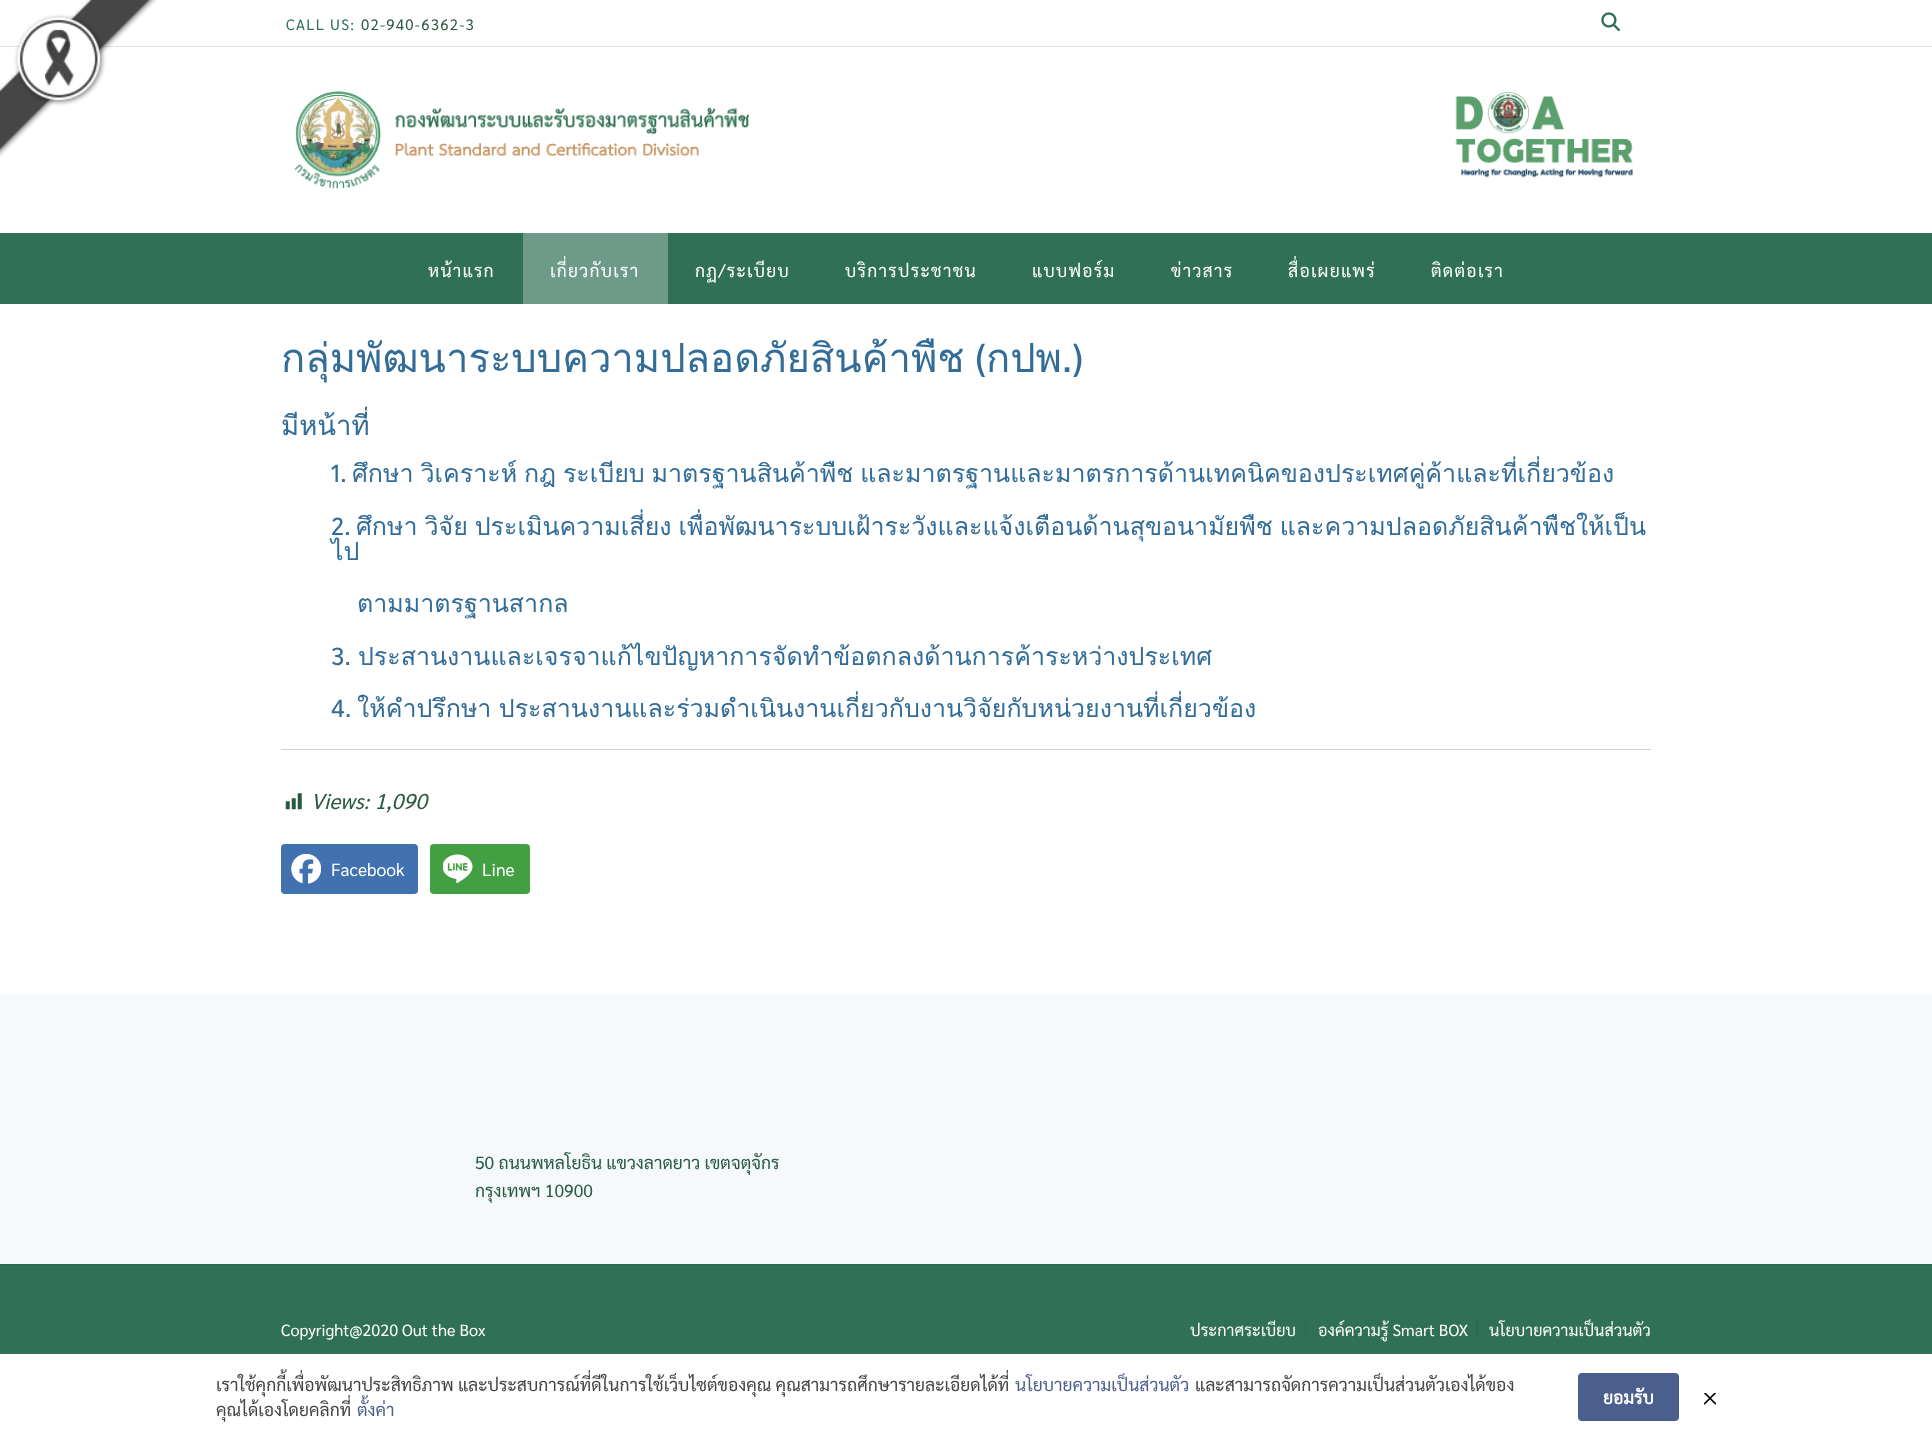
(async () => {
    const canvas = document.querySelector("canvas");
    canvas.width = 1932;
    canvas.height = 1439;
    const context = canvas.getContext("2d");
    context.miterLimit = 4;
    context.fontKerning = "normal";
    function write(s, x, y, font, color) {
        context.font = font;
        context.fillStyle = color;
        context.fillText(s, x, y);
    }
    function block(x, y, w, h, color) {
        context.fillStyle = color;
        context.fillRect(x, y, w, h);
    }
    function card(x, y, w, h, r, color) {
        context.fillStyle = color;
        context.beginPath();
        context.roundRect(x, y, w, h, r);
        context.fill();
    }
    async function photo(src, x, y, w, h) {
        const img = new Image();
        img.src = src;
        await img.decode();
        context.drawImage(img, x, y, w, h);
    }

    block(0, 0, 1932, 1439, "rgb(255, 255, 255)");
    block(0, 46, 1932, 1, "rgb(224, 224, 224)");
    await photo("media/1.png", 0, 0, 157, 157);
    context.letterSpacing = "1.25px";
    write("CALL US:", 286, 30, "15px Sarabun", "rgb(48, 112, 87)");
    write("02-940-6362-3", 361, 30, "15px Sarabun", "rgb(41, 90, 65)");
    await photo("media/2.png", 1601, 12, 19, 20);
    await photo("media/3.png", 294, 91, 1339, 98);
    block(0, 233, 1932, 71, "rgb(48, 112, 87)");
    write("หน้าแรก", 428, 277, "17.5px Sarabun", "rgb(255, 255, 255)");
    block(523, 233, 145, 71, "rgb(110, 155, 137)");
    write("เกี่ยวกับเรา", 550, 277, "17.5px Sarabun", "rgb(255, 255, 255)");
    write("กฏ/ระเบียบ", 695, 277, "17.5px Sarabun", "rgb(255, 255, 255)");
    write("บริการประชาชน", 845, 277, "17.5px Sarabun", "rgb(255, 255, 255)");
    write("แบบฟอร์ม", 1032, 277, "17.5px Sarabun", "rgb(255, 255, 255)");
    write("ข่าวสาร", 1171, 277, "17.5px Sarabun", "rgb(255, 255, 255)");
    write("สื่อเผยแพร่", 1288, 277, "17.5px Sarabun", "rgb(255, 255, 255)");
    write("ติดต่อเรา", 1431, 277, "17.5px Sarabun", "rgb(255, 255, 255)");
    context.letterSpacing = "0px";
    write("กลุ่มพัฒนาระบบความปลอดภัยสินค้าพืช", 281, 372, "40px Loma", "rgb(50, 108, 152)");
    write("(", 975, 372, "40px Shanti", "rgb(50, 108, 152)");
    write("กปพ", 986, 372, "40px Loma", "rgb(50, 108, 152)");
    write(".)", 1062, 372, "40px Shanti", "rgb(50, 108, 152)");
    write("มีหน้าที่", 281, 435, "27.5px Loma", "rgb(50, 108, 152)");
    write("1.", 331, 482, "25px Shanti", "rgb(50, 108, 152)");
    context.wordSpacing = "-1.5px";
    write("ศึกษา วิเคราะห์ กฎ ระเบียบ มาตรฐานสินค้าพืช และมาตรฐานและมาตรการด้านเทคนิคของประเทศคู่ค้าและที่เกี่ยวข้อง", 352, 482, "25px Loma", "rgb(50, 108, 152)");
    context.wordSpacing = "0px";
    write("2.", 331, 535, "25px Shanti", "rgb(50, 108, 152)");
    context.wordSpacing = "-1.5px";
    write("ศึกษา วิจัย ประเมินความเสี่ยง เพื่อพัฒนาระบบเฝ้าระวังและแจ้งเตือนด้านสุขอนามัยพืช และความปลอดภัยสินค้าพืชให้เป็น", 356, 535, "25px Loma", "rgb(50, 108, 152)");
    context.wordSpacing = "0px";
    write("ไป", 331, 560, "25px Loma", "rgb(50, 108, 152)");
    write("ตามมาตรฐานสากล", 357, 612, "25px Loma", "rgb(50, 108, 152)");
    write("3.", 331, 665, "25px Shanti", "rgb(50, 108, 152)");
    write("ประสานงานและเจรจาแก้ไขปัญหาการจัดทำข้อตกลงด้านการค้าระหว่างประเทศ", 358, 665, "25px Loma", "rgb(50, 108, 152)");
    write("4.", 331, 717, "25px Shanti", "rgb(50, 108, 152)");
    context.wordSpacing = "-1px";
    write("ให้คำปรึกษา ประสานงานและร่วมดำเนินงานเกี่ยวกับงานวิจัยกับหน่วยงานที่เกี่ยวข้อง", 357, 717, "25px Loma", "rgb(50, 108, 152)");
    block(281, 749, 1370, 1, "rgb(209, 210, 211)");
    await photo("media/4.png", 285, 793, 17, 17);
    context.wordSpacing = "0px";
    write("Views: 1,090", 311, 809, "italic 21.5px Sarabun", "rgb(41, 90, 65)");
    card(281, 844, 137, 50, 4, "rgb(66, 113, 175)");
    await photo("media/5.png", 291, 854, 30, 30);
    write("Facebook", 331, 876, "17.5px Sarabun", "rgb(255, 255, 255)");
    card(430, 844, 100, 50, 4, "rgb(66, 159, 66)");
    await photo("media/6.png", 443, 854, 30, 29);
    write("Line", 482, 876, "17.5px Sarabun", "rgb(255, 255, 255)");
    block(0, 995, 1932, 269, "rgb(245, 249, 252)");
    write("50 ถนนพหลโยธิน แขวงลาดยาว เขตจตุจักร", 475, 1169, "17.5px Sarabun", "rgb(41, 90, 65)");
    write("กรุงเทพฯ 10900", 475, 1197, "17.5px Sarabun", "rgb(41, 90, 65)");
    block(0, 1265, 1932, 89, "rgb(48, 112, 87)");
    block(0, 1264, 1932, 1, "rgb(44, 103, 80)");
    write("Copyright@2020 Out the Box", 281, 1336, "16.25px Sarabun", "rgb(255, 255, 255)");
    block(1305, 1320, 1, 16, "rgb(44, 103, 80)");
    write("ประกาศระเบียบ", 1190, 1336, "16.25px Sarabun", "rgb(255, 255, 255)");
    block(1476, 1320, 2, 16, "rgb(44, 103, 80)");
    write("องค์ความรู้ Smart BOX", 1318, 1336, "16.25px Sarabun", "rgb(255, 255, 255)");
    write("นโยบายความเป็นส่วนตัว", 1489, 1336, "16.25px Sarabun", "rgb(255, 255, 255)");
    write("เราใช้คุกกี้เพื่อพัฒนาประสิทธิภาพ และประสบการณ์ที่ดีในการใช้เว็บไซต์ของคุณ คุณสามารถศึกษารายละเอียดได้ที่", 216, 1391, "17.5px Sarabun", "rgb(68, 68, 68)");
    write("นโยบายความเป็นส่วนตัว", 1015, 1391, "17.5px Sarabun", "rgb(75, 95, 142)");
    write("และสามารถจัดการความเป็นส่วนตัวเองได้ของ", 1195, 1391, "17.5px Sarabun", "rgb(68, 68, 68)");
    write("คุณได้เองโดยคลิกที่", 216, 1416, "17.5px Sarabun", "rgb(68, 68, 68)");
    write("ตั้งค่า", 357, 1416, "17.5px Sarabun", "rgb(75, 95, 142)");
    card(1578, 1373, 101, 48, 4, "rgb(75, 95, 142)");
    write("ยอมรับ", 1603, 1404, "bold 17.5px Sarabun", "rgb(255, 255, 255)");
    await photo("media/7.png", 1704, 1393, 12, 12);
})();
